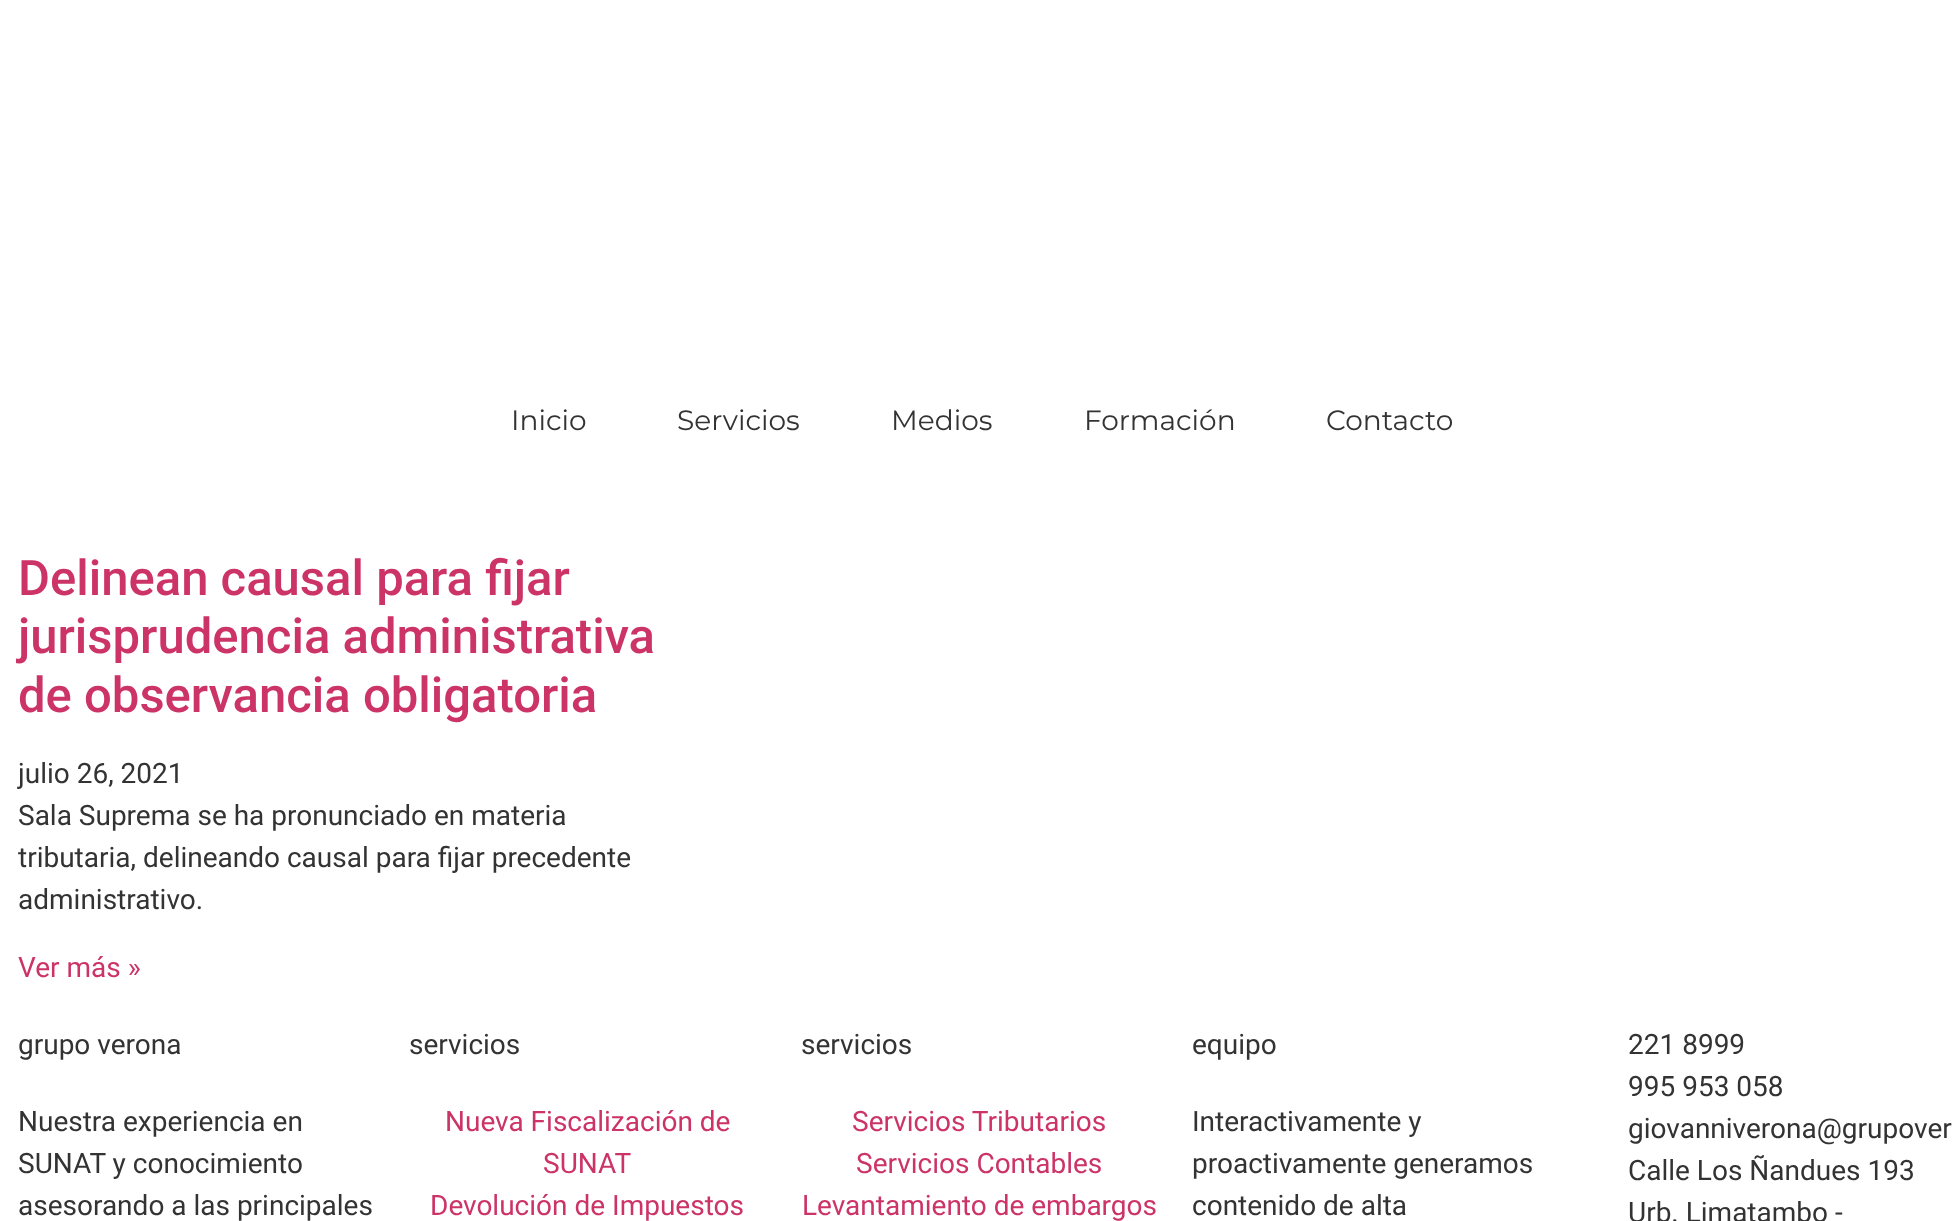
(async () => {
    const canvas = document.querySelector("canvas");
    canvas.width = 1957;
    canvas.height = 1221;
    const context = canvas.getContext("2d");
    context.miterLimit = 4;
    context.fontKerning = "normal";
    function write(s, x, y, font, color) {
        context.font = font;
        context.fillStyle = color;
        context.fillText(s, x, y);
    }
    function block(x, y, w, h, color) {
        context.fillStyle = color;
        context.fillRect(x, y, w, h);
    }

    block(0, 0, 1957, 1221, "rgb(255, 255, 255)");
    write("Inicio", 511, 430, "28px Montserrat", "rgb(51, 51, 51)");
    write("Servicios", 677, 430, "28px Montserrat", "rgb(51, 51, 51)");
    write("Medios", 891, 430, "28px Montserrat", "rgb(51, 51, 51)");
    write("Formación", 1084, 430, "28px Montserrat", "rgb(51, 51, 51)");
    write("Contacto", 1326, 430, "28px Montserrat", "rgb(51, 51, 51)");
    write("Delinean causal para fijar", 18, 595, "500 49px Roboto", "rgb(204, 51, 102)");
    write("jurisprudencia administrativa", 18, 653, "500 49px Roboto", "rgb(204, 51, 102)");
    write("de observancia obligatoria", 18, 712, "500 49px Roboto", "rgb(204, 51, 102)");
    write("julio 26, 2021", 18, 783, "28px Roboto", "rgb(51, 51, 51)");
    write("Sala Suprema se ha pronunciado en materia", 18, 825, "28px Roboto", "rgb(51, 51, 51)");
    write("tributaria, delineando causal para fijar precedente", 18, 867, "28px Roboto", "rgb(51, 51, 51)");
    write("administrativo.", 18, 909, "28px Roboto", "rgb(51, 51, 51)");
    write("Ver más »", 18, 977, "28px Roboto", "rgb(204, 51, 102)");
    write("grupo verona", 18, 1054, "28px Roboto", "rgb(51, 51, 51)");
    write("Nuestra experiencia en", 18, 1131, "28px Roboto", "rgb(51, 51, 51)");
    write("SUNAT y conocimiento", 18, 1173, "28px Roboto", "rgb(51, 51, 51)");
    write("asesorando a las principales", 18, 1215, "28px Roboto", "rgb(51, 51, 51)");
    write("servicios", 409, 1054, "28px Roboto", "rgb(51, 51, 51)");
    write("Nueva Fiscalización de", 445, 1131, "28px Roboto", "rgb(204, 51, 102)");
    write("SUNAT", 543, 1173, "28px Roboto", "rgb(204, 51, 102)");
    write("Devolución de Impuestos", 430, 1215, "28px Roboto", "rgb(204, 51, 102)");
    write("servicios", 801, 1054, "28px Roboto", "rgb(51, 51, 51)");
    write("Servicios Tributarios", 852, 1131, "28px Roboto", "rgb(204, 51, 102)");
    write("Servicios Contables", 856, 1173, "28px Roboto", "rgb(204, 51, 102)");
    write("Levantamiento de embargos", 802, 1215, "28px Roboto", "rgb(204, 51, 102)");
    write("equipo", 1192, 1054, "28px Roboto", "rgb(51, 51, 51)");
    write("Interactivamente y", 1192, 1131, "28px Roboto", "rgb(51, 51, 51)");
    write("proactivamente generamos", 1192, 1173, "28px Roboto", "rgb(51, 51, 51)");
    write("contenido de alta", 1192, 1215, "28px Roboto", "rgb(51, 51, 51)");
    write("221 8999", 1628, 1054, "28px Roboto", "rgb(51, 51, 51)");
    write("995 953 058", 1628, 1096, "28px Roboto", "rgb(51, 51, 51)");
    write("giovanniverona@grupover", 1628, 1138, "28px Roboto", "rgb(51, 51, 51)");
    write("Calle Los Ñandues 193", 1628, 1180, "28px Roboto", "rgb(51, 51, 51)");
    write("Urb. Limatambo -", 1628, 1222, "28px Roboto", "rgb(51, 51, 51)");
})();
